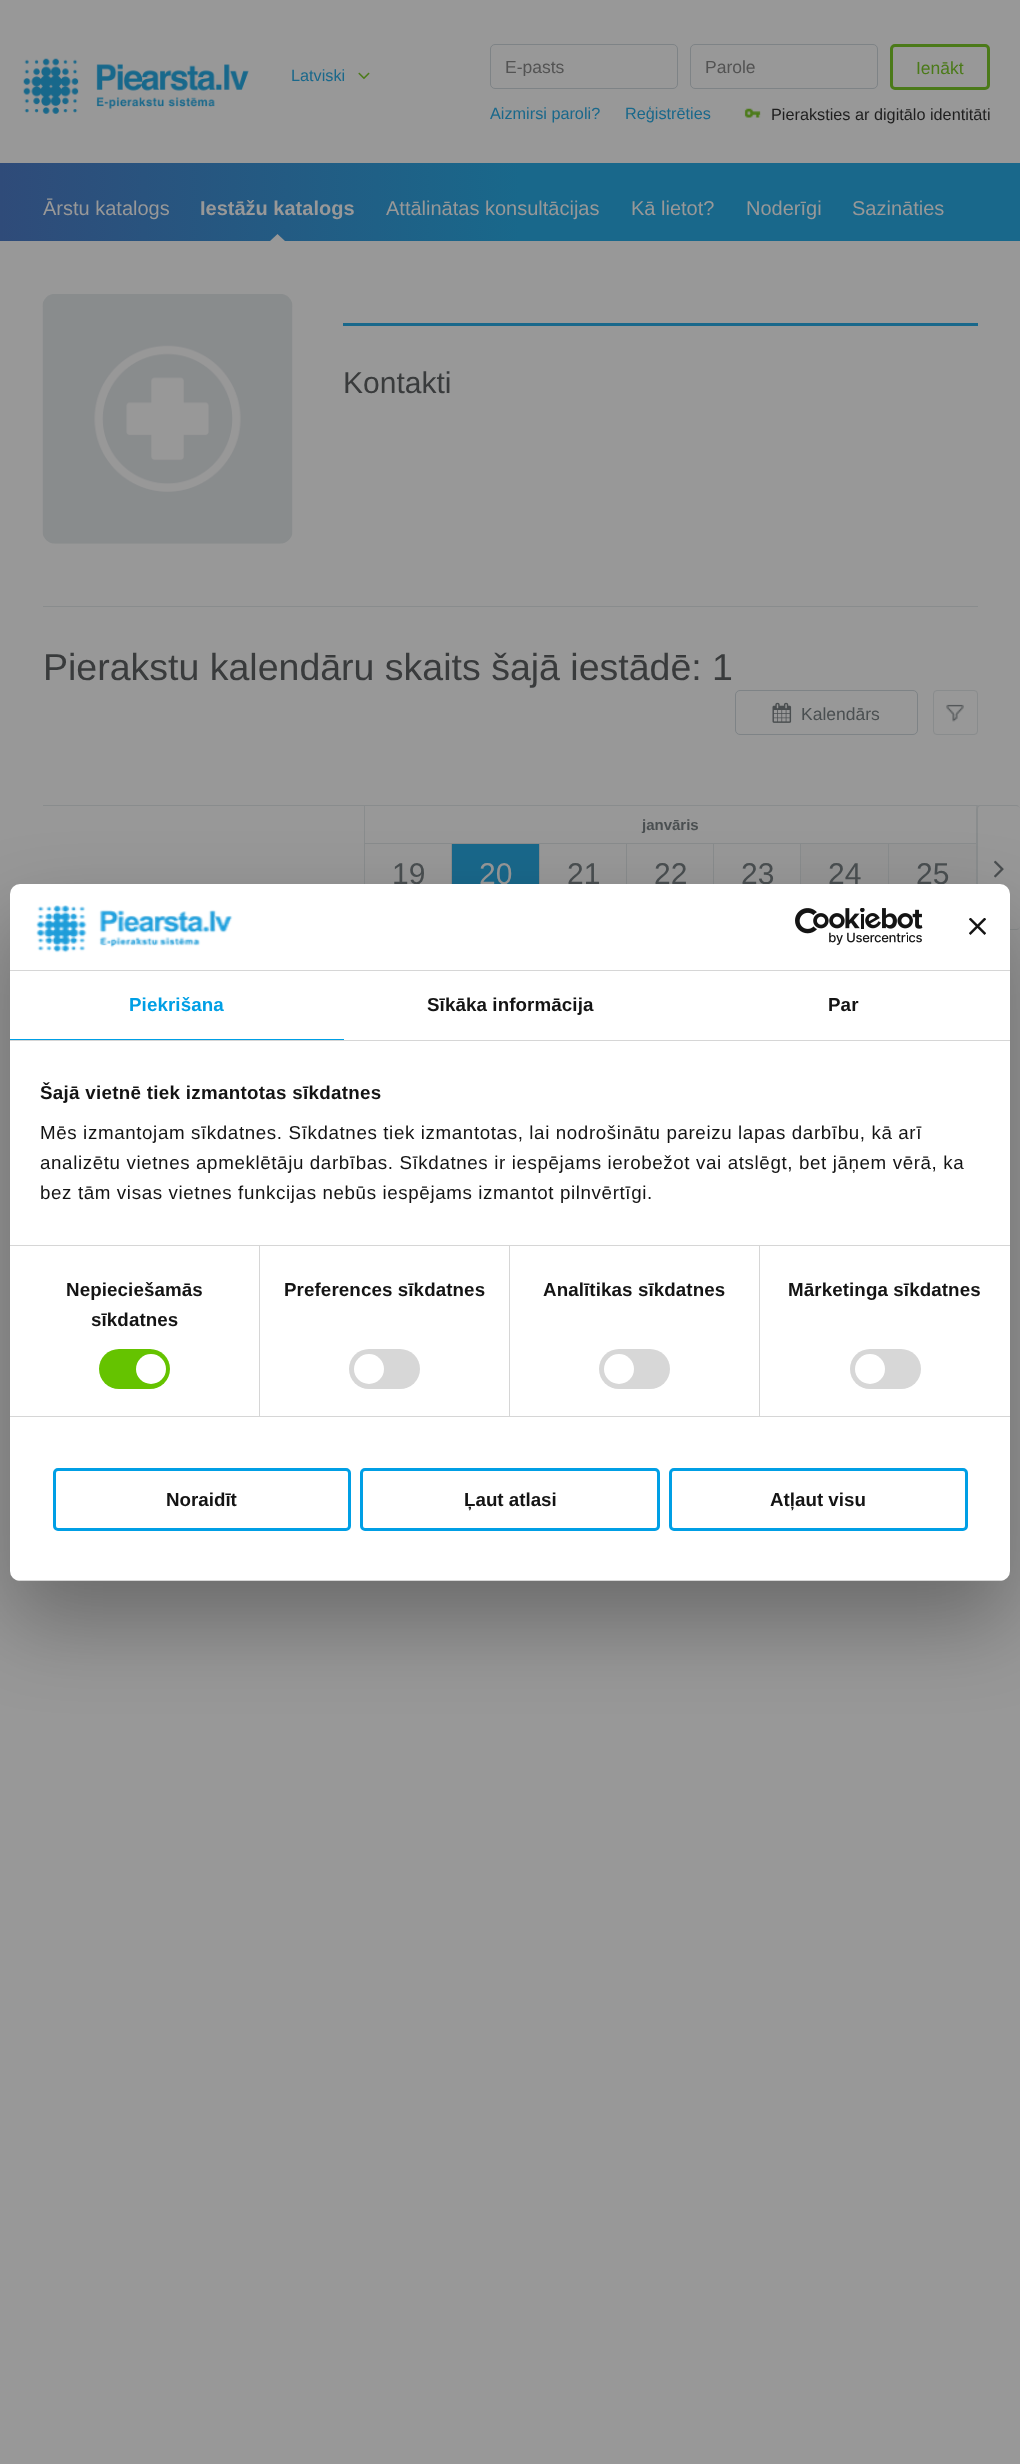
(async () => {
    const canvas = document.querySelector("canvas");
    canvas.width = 1020;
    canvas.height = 2464;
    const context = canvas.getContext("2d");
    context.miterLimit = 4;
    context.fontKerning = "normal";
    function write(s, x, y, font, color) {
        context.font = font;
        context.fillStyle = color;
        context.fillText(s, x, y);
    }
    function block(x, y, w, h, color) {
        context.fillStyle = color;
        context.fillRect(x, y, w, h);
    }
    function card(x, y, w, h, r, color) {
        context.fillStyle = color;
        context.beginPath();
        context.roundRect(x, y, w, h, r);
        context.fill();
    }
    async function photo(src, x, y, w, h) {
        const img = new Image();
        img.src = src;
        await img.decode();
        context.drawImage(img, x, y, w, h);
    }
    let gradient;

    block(0, 0, 1020, 2464, "rgb(152, 152, 152)");
    await photo("media/1.png", 23, 58, 226, 56);
    write("Latviski", 291, 81, "16.25px Liberation Sans", "rgb(25, 104, 139)");
    await photo("media/2.png", 358, 72, 12, 8);
    context.beginPath();
    context.roundRect(490.5, 44.5, 187, 44, 4.5);
    context.strokeStyle = "rgb(126, 131, 134)";
    context.stroke();
    context.save();
    context.beginPath();
    context.rect(505, 56, 158, 20);
    context.clip();
    write("E-pasts", 505, 73, "17.5px Liberation Sans", "rgb(83, 83, 83)");
    context.restore();
    context.beginPath();
    context.roundRect(690.5, 44.5, 187, 44, 4.5);
    context.stroke();
    write("Parole", 705, 73, "17.5px Liberation Sans", "rgb(83, 83, 83)");
    context.beginPath();
    context.roundRect(891.5, 45.5, 97, 43, 3.5);
    context.strokeStyle = "rgb(75, 122, 25)";
    context.lineWidth = 3;
    context.stroke();
    write("Ienākt", 916, 74, "17.5px Liberation Sans", "rgb(75, 122, 25)");
    write("Aizmirsi paroli?", 490, 119, "16.25px Liberation Sans", "rgb(25, 104, 139)");
    write("Reģistrēties", 625, 119, "16.25px Liberation Sans", "rgb(25, 104, 139)");
    await photo("media/3.png", 744, 108, 17, 10);
    write("Pieraksties ar digitālo identitāti", 771, 120, "16.25px Liberation Sans", "rgb(30, 30, 30)");
    gradient = context.createLinearGradient(0, 202, 1020, 202);
    gradient.addColorStop(0, "rgb(47, 75, 121)");
    gradient.addColorStop(0.51, "rgb(25, 104, 139)");
    context.fillStyle = gradient;
    context.fillRect(0, 163, 1020, 78);
    write("Ārstu katalogs", 43, 215, "20px Liberation Sans", "rgb(152, 152, 152)");
    write("Iestāžu katalogs", 200, 215, "bold 20px Liberation Sans", "rgb(152, 152, 152)");
    context.beginPath();
    context.moveTo(285, 241);
    context.lineTo(270, 241);
    context.lineTo(277.5, 234);
    context.closePath();
    context.fill();
    write("Attālinātas konsultācijas", 386, 215, "20px Liberation Sans", "rgb(152, 152, 152)");
    write("Kā lietot?", 631, 215, "20px Liberation Sans", "rgb(152, 152, 152)");
    write("Noderīgi", 746, 215, "20px Liberation Sans", "rgb(152, 152, 152)");
    write("Sazināties", 852, 215, "20px Liberation Sans", "rgb(152, 152, 152)");
    await photo("media/4.png", 42, 294, 251, 250);
    block(343, 323, 635, 3, "rgb(25, 104, 139)");
    write("Kontakti", 343, 393, "30px Liberation Sans", "rgb(57, 59, 60)");
    block(43, 606, 935, 1, "rgb(137, 140, 141)");
    write("Pierakstu kalendāru skaits šajā iestādē: 1", 43, 680, "37.5px Liberation Sans", "rgb(57, 59, 60)");
    context.beginPath();
    context.roundRect(735.5, 690.5, 182, 44, 4.5);
    context.strokeStyle = "rgb(126, 131, 134)";
    context.lineWidth = 1;
    context.stroke();
    await photo("media/5.png", 772, 702, 20, 21);
    write("Kalendārs", 801, 720, "17.5px Liberation Sans", "rgb(74, 79, 81)");
    await photo("media/6.png", 946, 704, 18, 18);
    context.beginPath();
    context.roundRect(933.5, 690.5, 44, 44, 3.5);
    context.strokeStyle = "rgb(137, 140, 141)";
    context.stroke();
    block(43, 805, 935, 1, "rgb(137, 140, 141)");
    block(976, 806, 1, 3, "rgb(137, 140, 141)");
    block(364, 806, 1, 78, "rgb(137, 140, 141)");
    block(365, 843, 611, 1, "rgb(137, 140, 141)");
    write("janvāris", 642, 830, "bold 15px Liberation Sans", "rgb(74, 79, 81)");
    write("19", 392, 884, "30px Liberation Sans", "rgb(74, 79, 81)");
    block(452, 844, 87, 40, "rgb(25, 104, 139)");
    block(451, 844, 1, 40, "rgb(137, 140, 141)");
    write("20", 479, 884, "30px Liberation Sans", "rgb(152, 152, 152)");
    block(539, 844, 1, 40, "rgb(137, 140, 141)");
    write("21", 567, 884, "30px Liberation Sans", "rgb(74, 79, 81)");
    block(626, 844, 1, 40, "rgb(137, 140, 141)");
    write("22", 654, 884, "30px Liberation Sans", "rgb(74, 79, 81)");
    block(713, 844, 1, 40, "rgb(137, 140, 141)");
    write("23", 741, 884, "30px Liberation Sans", "rgb(74, 79, 81)");
    block(801, 844, 87, 40, "rgb(149, 149, 149)");
    block(800, 844, 1, 40, "rgb(137, 140, 141)");
    write("24", 828, 884, "30px Liberation Sans", "rgb(74, 79, 81)");
    block(889, 844, 87, 40, "rgb(149, 149, 149)");
    block(888, 844, 1, 40, "rgb(137, 140, 141)");
    write("25", 916, 884, "30px Liberation Sans", "rgb(74, 79, 81)");
    card(976, 805, 44, 125, 4, "rgb(152, 152, 152)");
    context.fillStyle = "rgb(137, 140, 141)";
    context.beginPath();
    context.moveTo(980, 805);
    context.lineTo(1016, 805);
    context.bezierCurveTo(1018, 805, 1020, 807, 1020, 809);
    context.lineTo(1020, 926);
    context.bezierCurveTo(1020, 928, 1018, 930, 1016, 930);
    context.lineTo(980, 930);
    context.bezierCurveTo(978, 930, 976, 928, 976, 926);
    context.lineTo(976, 809);
    context.bezierCurveTo(976, 807, 978, 805, 980, 805);
    context.closePath();
    context.moveTo(980, 806);
    context.lineTo(1016, 806);
    context.bezierCurveTo(1018, 806, 1020, 807, 1020, 809);
    context.lineTo(1020, 926);
    context.bezierCurveTo(1020, 928, 1018, 929, 1016, 929);
    context.lineTo(980, 929);
    context.bezierCurveTo(979, 929, 978, 928, 978, 926);
    context.lineTo(978, 809);
    context.bezierCurveTo(978, 807, 979, 806, 980, 806);
    context.closePath();
    context.fill("evenodd");
    await photo("media/7.png", 994, 860, 10, 18);
    context.fillStyle = "rgba(0, 0, 0, 0.3)";
    context.filter = "blur(42.5px)";
    context.beginPath();
    context.roundRect(10, 924, 1000, 697, 10);
    context.fill();
    context.filter = "none";
    card(10, 884, 1000, 697, 10, "rgb(255, 255, 255)");
    block(10, 970, 1000, 1, "rgb(214, 214, 214)");
    await photo("media/8.png", 36, 905, 197, 48);
    await photo("media/9.png", 795, 908, 128, 37);
    await photo("media/10.png", 969, 918, 17, 17);
    block(10, 1040, 1000, 1, "rgb(214, 214, 214)");
    block(10, 1039, 334, 1, "rgb(0, 159, 229)");
    context.letterSpacing = "0.1px";
    write("Piekrišana", 129, 1011, "bold 18.75px Liberation Sans", "rgb(0, 159, 229)");
    write("Sīkāka informācija", 427, 1011, "bold 18.75px Liberation Sans", "rgb(20, 20, 20)");
    write("Par", 828, 1011, "bold 18.75px Liberation Sans", "rgb(20, 20, 20)");
    block(10, 1245, 1000, 1, "rgb(214, 214, 214)");
    context.letterSpacing = "0.3px";
    write("Šajā vietnē tiek izmantotas sīkdatnes", 40, 1099, "bold 18.75px Liberation Sans", "rgb(20, 20, 20)");
    context.letterSpacing = "0.62px";
    write("Mēs izmantojam sīkdatnes. Sīkdatnes tiek izmantotas, lai nodrošinātu pareizu lapas darbību, kā arī", 40, 1139, "18.75px Liberation Sans", "rgb(20, 20, 20)");
    write("analizētu vietnes apmeklētāju darbības. Sīkdatnes ir iespējams ierobežot vai atslēgt, bet jāņem vērā, ka", 40, 1169, "18.75px Liberation Sans", "rgb(20, 20, 20)");
    write("bez tām visas vietnes funkcijas nebūs iespējams izmantot pilnvērtīgi.", 40, 1199, "18.75px Liberation Sans", "rgb(20, 20, 20)");
    block(10, 1416, 1000, 1, "rgb(214, 214, 214)");
    block(259, 1246, 1, 170, "rgb(214, 214, 214)");
    context.letterSpacing = "0.1px";
    write("Nepieciešamās", 66, 1296, "bold 18.75px Liberation Sans", "rgb(20, 20, 20)");
    write("sīkdatnes", 91, 1326, "bold 18.75px Liberation Sans", "rgb(20, 20, 20)");
    card(99, 1349, 71, 40, 20, "rgb(101, 195, 0)");
    context.fillStyle = "rgb(255, 255, 255)";
    context.beginPath();
    context.arc(151, 1369, 15, 0, Math.PI * 2);
    context.fill();
    block(509, 1246, 1, 170, "rgb(214, 214, 214)");
    write("Preferences sīkdatnes", 284, 1296, "bold 18.75px Liberation Sans", "rgb(20, 20, 20)");
    card(349, 1349, 71, 40, 20, "rgb(215, 215, 215)");
    context.fillStyle = "rgb(255, 255, 255)";
    context.beginPath();
    context.arc(369, 1369, 15, 0, Math.PI * 2);
    context.fill();
    block(759, 1246, 1, 170, "rgb(214, 214, 214)");
    write("Analītikas sīkdatnes", 543, 1296, "bold 18.75px Liberation Sans", "rgb(20, 20, 20)");
    card(599, 1349, 71, 40, 20, "rgb(215, 215, 215)");
    context.fillStyle = "rgb(255, 255, 255)";
    context.beginPath();
    context.arc(619, 1369, 15, 0, Math.PI * 2);
    context.fill();
    write("Mārketinga sīkdatnes", 788, 1296, "bold 18.75px Liberation Sans", "rgb(20, 20, 20)");
    card(850, 1349, 71, 40, 20, "rgb(215, 215, 215)");
    context.fillStyle = "rgb(255, 255, 255)";
    context.beginPath();
    context.arc(870, 1369, 15, 0, Math.PI * 2);
    context.fill();
    context.save();
    context.beginPath();
    context.roundRect(10, 884, 1000, 697, 10);
    context.clip();
    block(10, 1580, 1000, 1, "rgb(214, 214, 214)");
    context.restore();
    context.beginPath();
    context.roundRect(54.5, 1469.5, 295, 60, 3.5);
    context.strokeStyle = "rgb(0, 159, 229)";
    context.lineWidth = 3;
    context.stroke();
    context.letterSpacing = "0px";
    write("Noraidīt", 166, 1506, "bold 18.75px Liberation Sans", "rgb(20, 20, 20)");
    context.beginPath();
    context.roundRect(361.5, 1469.5, 297, 60, 3.5);
    context.stroke();
    write("Ļaut atlasi", 464, 1506, "bold 18.75px Liberation Sans", "rgb(20, 20, 20)");
    context.beginPath();
    context.roundRect(670.5, 1469.5, 296, 60, 3.5);
    context.stroke();
    write("Atļaut visu", 770, 1506, "bold 18.75px Liberation Sans", "rgb(20, 20, 20)");
})();
